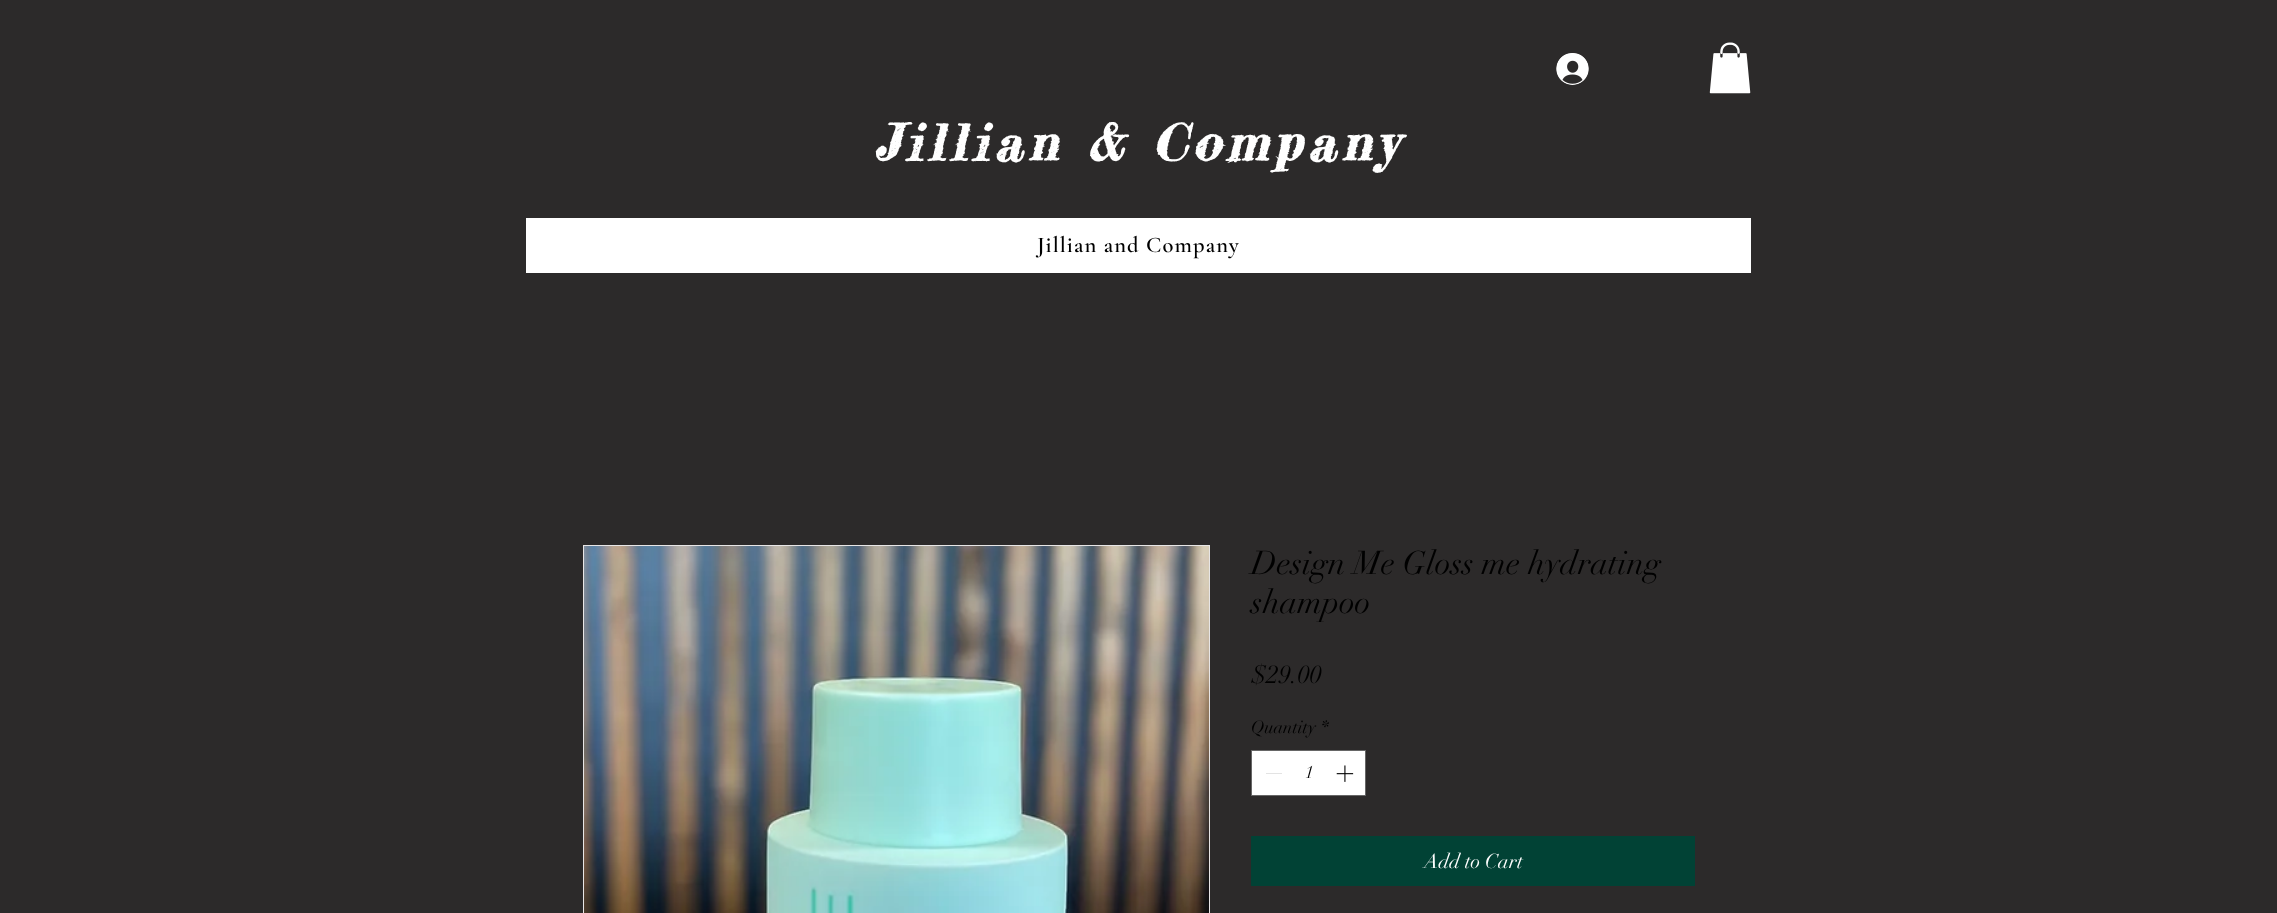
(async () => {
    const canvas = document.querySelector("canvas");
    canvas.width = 2277;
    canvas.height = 913;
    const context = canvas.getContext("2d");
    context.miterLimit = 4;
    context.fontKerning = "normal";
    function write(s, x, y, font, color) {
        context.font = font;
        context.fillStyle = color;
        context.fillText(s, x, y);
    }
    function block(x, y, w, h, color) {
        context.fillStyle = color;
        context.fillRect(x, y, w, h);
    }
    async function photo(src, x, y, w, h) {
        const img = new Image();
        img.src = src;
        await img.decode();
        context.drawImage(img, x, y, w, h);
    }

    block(0, 0, 2277, 913, "rgb(44, 42, 42)");
    await photo("media/1.png", 1556, 53, 33, 32);
    await photo("media/2.png", 1709, 42, 42, 52);
    context.letterSpacing = "6px";
    write("Jillian & Company", 874, 161, "italic bold 50px Fredericka the Great", "rgb(255, 255, 255)");
    block(526, 218, 1225, 55, "rgb(255, 255, 255)");
    context.letterSpacing = "1.1px";
    write("Jillian and Company", 1037, 252, "600 22.5px Cormorant Garamond", "rgb(0, 0, 0)");
    context.strokeStyle = "rgb(232, 230, 230)";
    context.strokeRect(583.5, 545.5, 626, 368);
    await photo("media/3.png", 584, 546, 625, 367);
    context.letterSpacing = "0px";
    write("Design Me Gloss me hydrating", 1251, 574, "32.5px didot", "rgb(0, 0, 0)");
    write("shampoo", 1251, 613, "32.5px didot", "rgb(0, 0, 0)");
    write("$29.00", 1251, 683, "25px didot", "rgb(0, 0, 0)");
    write("Quantity", 1251, 733, "17.5px didot", "rgb(0, 0, 0)");
    write("*", 1321, 733, "17.5px didot", "rgb(0, 0, 0)");
    context.fillStyle = "rgb(255, 255, 255)";
    context.beginPath();
    context.rect(1251.5, 750.5, 114, 45);
    context.fill();
    context.strokeStyle = "rgb(102, 102, 102)";
    context.stroke();
    block(1266, 773, 16, 1, "rgb(227, 227, 227)");
    write("1", 1305, 778, "17.5px didot", "rgb(0, 0, 0)");
    await photo("media/4.png", 1336, 765, 18, 17);
    block(1251, 836, 444, 50, "rgb(1, 66, 53)");
    write("Add to Cart", 1424, 868, "20px didot", "rgb(255, 255, 255)");
})();
